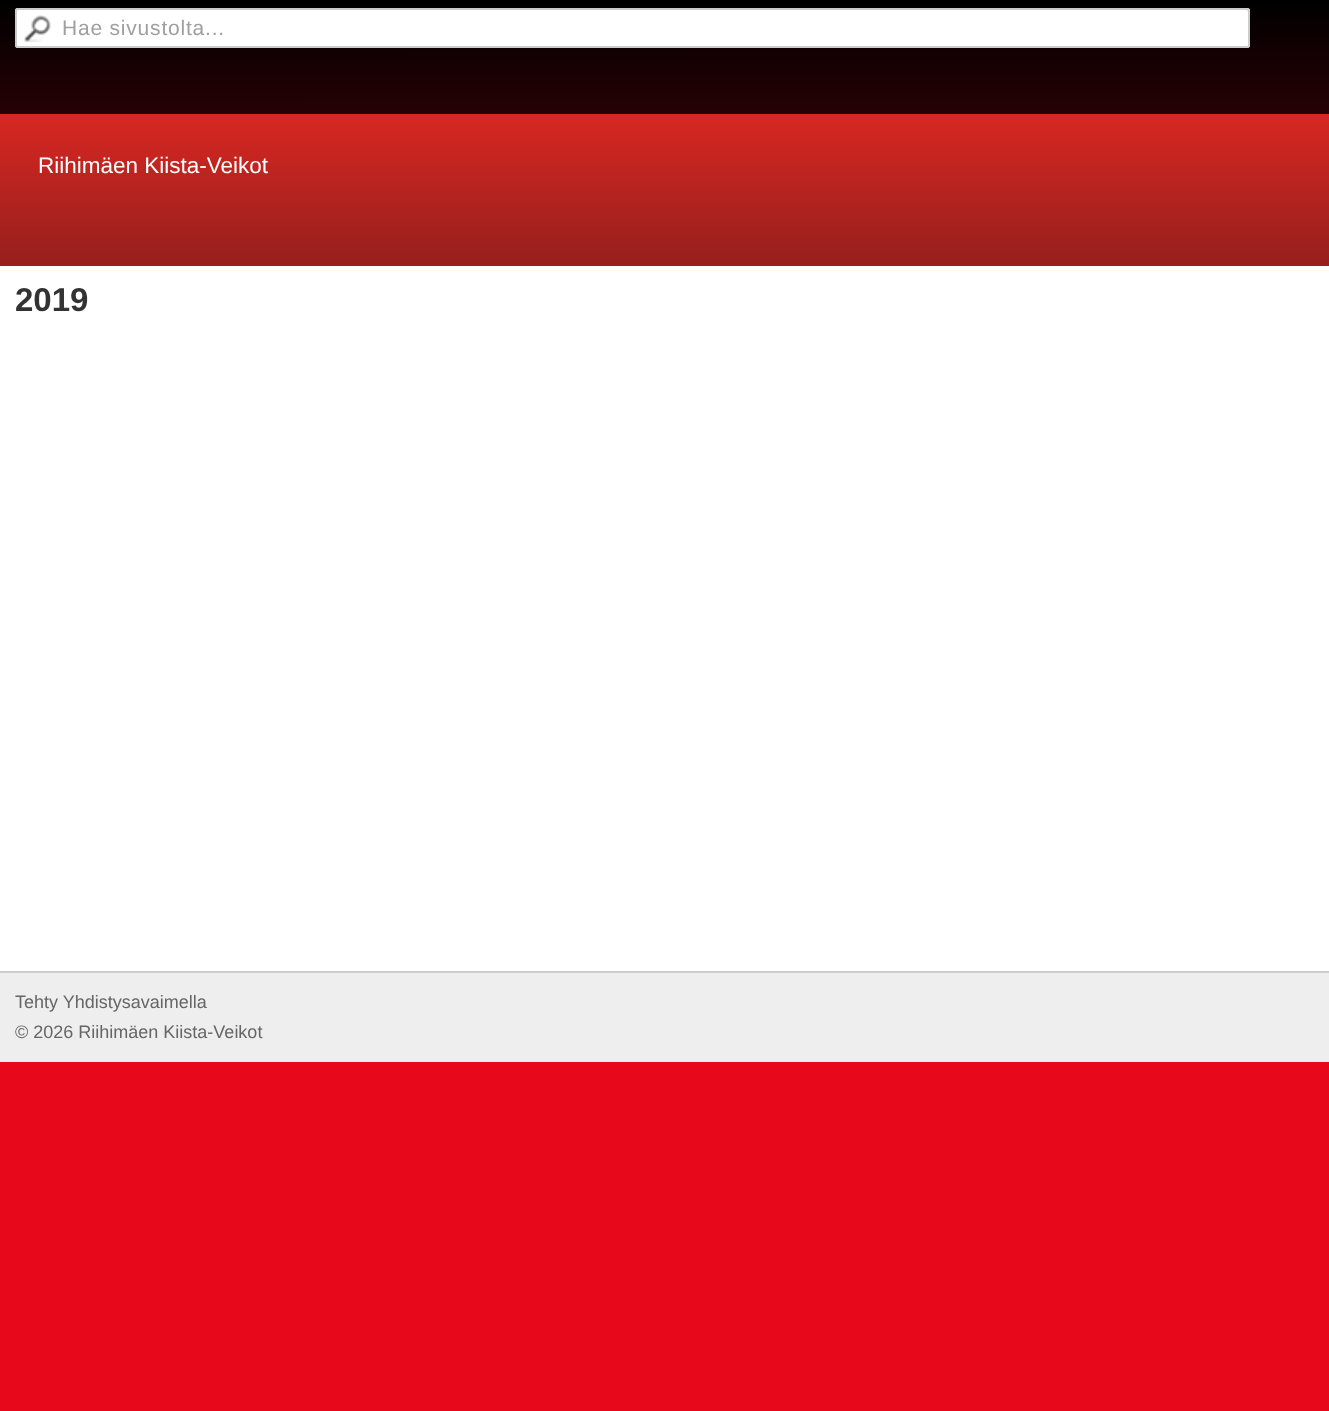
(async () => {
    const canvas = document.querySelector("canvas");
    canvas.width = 1329;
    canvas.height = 1411;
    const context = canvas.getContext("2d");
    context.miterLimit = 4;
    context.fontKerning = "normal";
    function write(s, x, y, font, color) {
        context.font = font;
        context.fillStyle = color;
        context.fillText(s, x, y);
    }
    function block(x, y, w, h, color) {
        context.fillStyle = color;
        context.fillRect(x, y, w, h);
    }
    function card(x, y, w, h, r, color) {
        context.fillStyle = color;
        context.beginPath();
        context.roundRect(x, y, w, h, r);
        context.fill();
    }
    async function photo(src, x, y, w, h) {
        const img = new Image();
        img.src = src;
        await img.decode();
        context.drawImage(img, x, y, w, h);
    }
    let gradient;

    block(0, 0, 1329, 1411, "rgb(255, 255, 255)");
    gradient = context.createLinearGradient(664, 0, 665, 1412);
    gradient.addColorStop(0, "rgb(0, 0, 0)");
    gradient.addColorStop(0.48, "rgb(232, 8, 27)");
    gradient.addColorStop(1, "rgb(232, 8, 27)");
    context.fillStyle = gradient;
    context.fillRect(0, 0, 1329, 1411);
    card(15, 8, 1235, 40, 3, "rgb(255, 255, 255)");
    await photo("media/1.png", 24, 15, 27, 27);
    context.fillStyle = "rgb(230, 230, 230)";
    context.beginPath();
    context.moveTo(18, 10);
    context.lineTo(1246, 10);
    context.bezierCurveTo(1247, 10, 1248, 11, 1248, 12);
    context.lineTo(1248, 10);
    context.lineTo(1246, 9);
    context.lineTo(18, 9);
    context.bezierCurveTo(18, 9, 17, 10, 17, 10);
    context.closePath();
    context.fill();
    context.beginPath();
    context.roundRect(16, 9, 1233, 38, 2);
    context.strokeStyle = "rgb(204, 204, 204)";
    context.lineWidth = 2;
    context.stroke();
    context.letterSpacing = "0.8px";
    write("Hae sivustolta...", 62, 35, "21px Liberation Sans", "rgb(159, 159, 159)");
    gradient = context.createLinearGradient(665, 114, 665, 292);
    gradient.addColorStop(0, "rgb(216, 39, 34)");
    gradient.addColorStop(1, "rgb(138, 30, 27)");
    context.fillStyle = gradient;
    context.fillRect(0, 114, 1329, 152);
    context.letterSpacing = "0px";
    write("Riihimäen Kiista-Veikot", 38, 173, "22.5px Liberation Sans", "rgb(255, 255, 255)");
    block(0, 266, 1329, 705, "rgb(255, 255, 255)");
    write("2019", 15, 311, "bold 33px Liberation Sans", "rgb(51, 51, 51)");
    block(0, 973, 1329, 89, "rgb(238, 238, 238)");
    block(0, 971, 1329, 2, "rgb(204, 204, 204)");
    write("Tehty Yhdistysavaimella", 15, 1008, "18px Liberation Sans", "rgb(102, 102, 102)");
    write("© 2026 Riihimäen Kiista-Veikot", 15, 1038, "18px Liberation Sans", "rgb(102, 102, 102)");
})();
